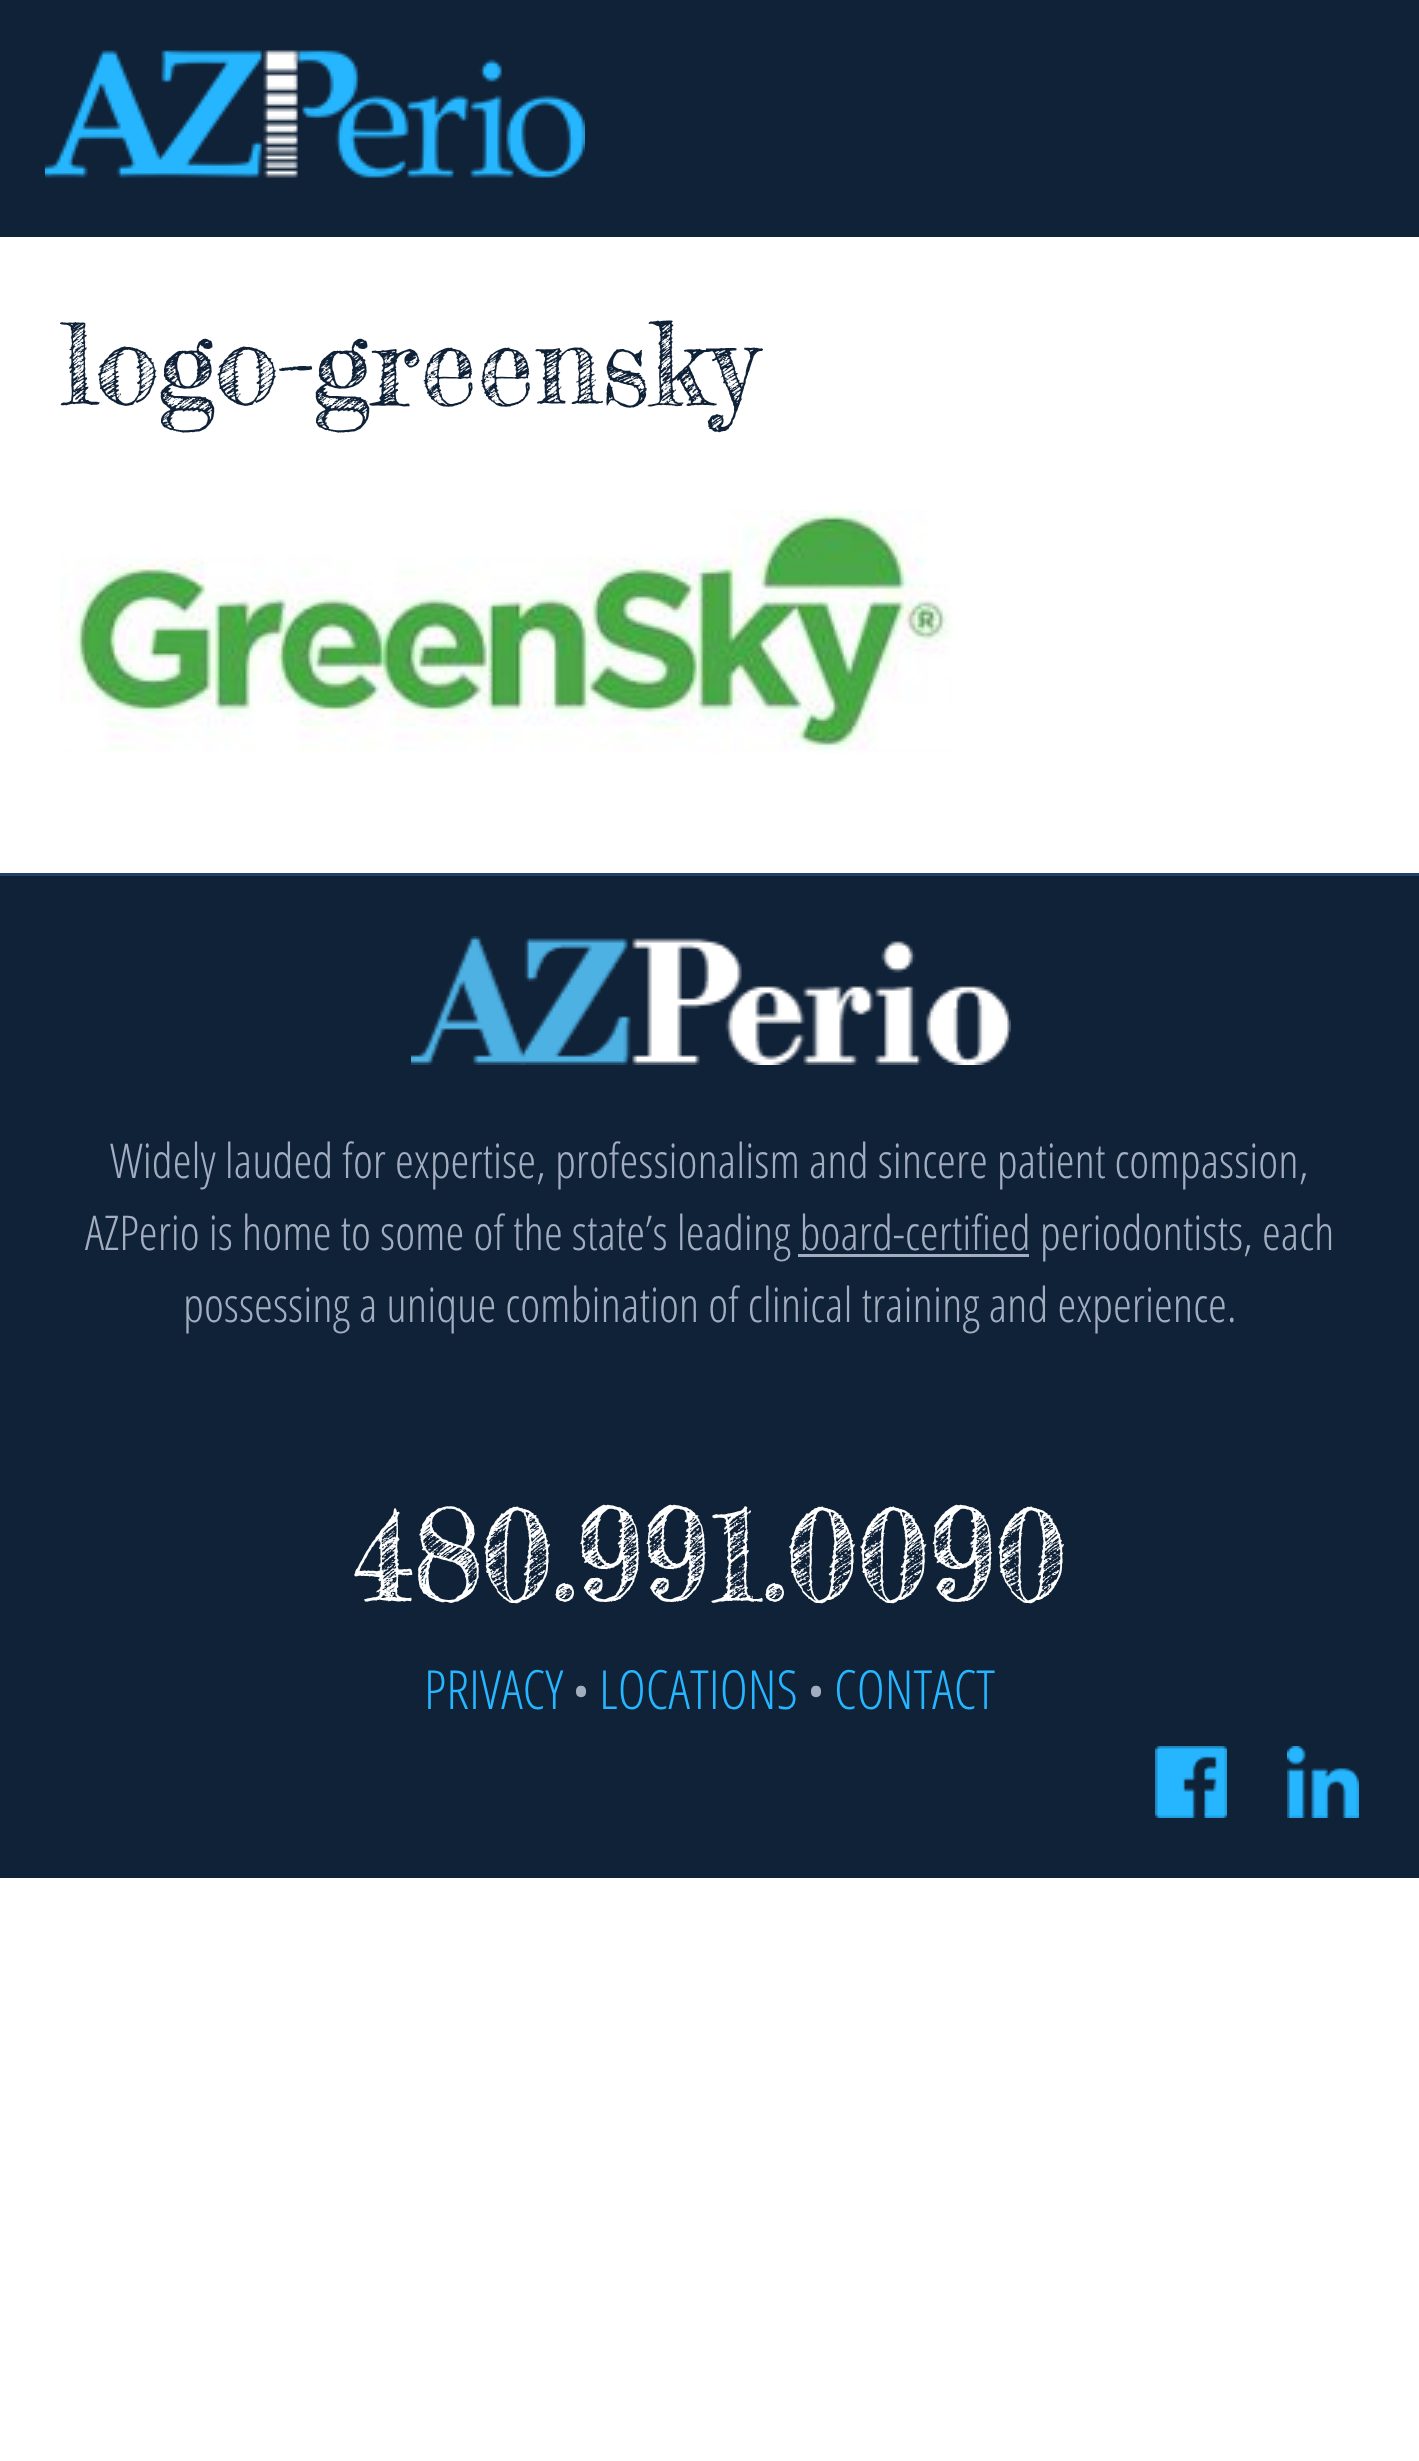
(async () => {
    const canvas = document.querySelector("canvas");
    canvas.width = 1419;
    canvas.height = 2461;
    const context = canvas.getContext("2d");
    context.miterLimit = 4;
    context.fontKerning = "normal";
    function write(s, x, y, font, color) {
        context.font = font;
        context.fillStyle = color;
        context.fillText(s, x, y);
    }
    function block(x, y, w, h, color) {
        context.fillStyle = color;
        context.fillRect(x, y, w, h);
    }
    async function photo(src, x, y, w, h) {
        const img = new Image();
        img.src = src;
        await img.decode();
        context.drawImage(img, x, y, w, h);
    }

    block(0, 0, 1419, 2461, "rgb(255, 255, 255)");
    block(0, 0, 1419, 237, "rgb(16, 34, 56)");
    await photo("media/1.png", 45, 50, 540, 128);
    write("logo-greensky", 60, 405, "114px Fredericka the Great", "rgb(16, 34, 56)");
    await photo("media/2.png", 60, 510, 893, 243);
    block(0, 876, 1419, 1002, "rgb(16, 34, 56)");
    block(0, 873, 1419, 3, "rgb(31, 65, 108)");
    await photo("media/3.png", 411, 936, 600, 129);
    write("Widely lauded for expertise, professionalism and sincere patient compassion,", 110, 1178, "300 48px Open Sans Condensed", "rgb(162, 173, 191)");
    write("AZPerio is home to some of the state’s leading board-certified periodontists, each", 85, 1250, "300 48px Open Sans Condensed", "rgb(162, 173, 191)");
    block(798, 1254, 231, 3, "rgb(162, 173, 191)");
    write("possessing a unique combination of clinical training and experience.", 183, 1322, "300 48px Open Sans Condensed", "rgb(162, 173, 191)");
    write("480.991.0090", 353, 1601, "126px Fredericka the Great", "rgb(255, 255, 255)");
    write("PRIVACY", 424, 1709, "300 54px Open Sans Condensed", "rgb(38, 182, 255)");
    write("•", 572, 1709, "300 48px Open Sans Condensed", "rgb(162, 173, 191)");
    write("LOCATIONS", 599, 1709, "300 54px Open Sans Condensed", "rgb(38, 182, 255)");
    write("•", 807, 1709, "300 48px Open Sans Condensed", "rgb(162, 173, 191)");
    write("CONTACT", 834, 1709, "300 54px Open Sans Condensed", "rgb(38, 182, 255)");
    await photo("media/4.png", 1155, 1746, 72, 72);
    await photo("media/5.png", 1287, 1746, 72, 72);
})();
